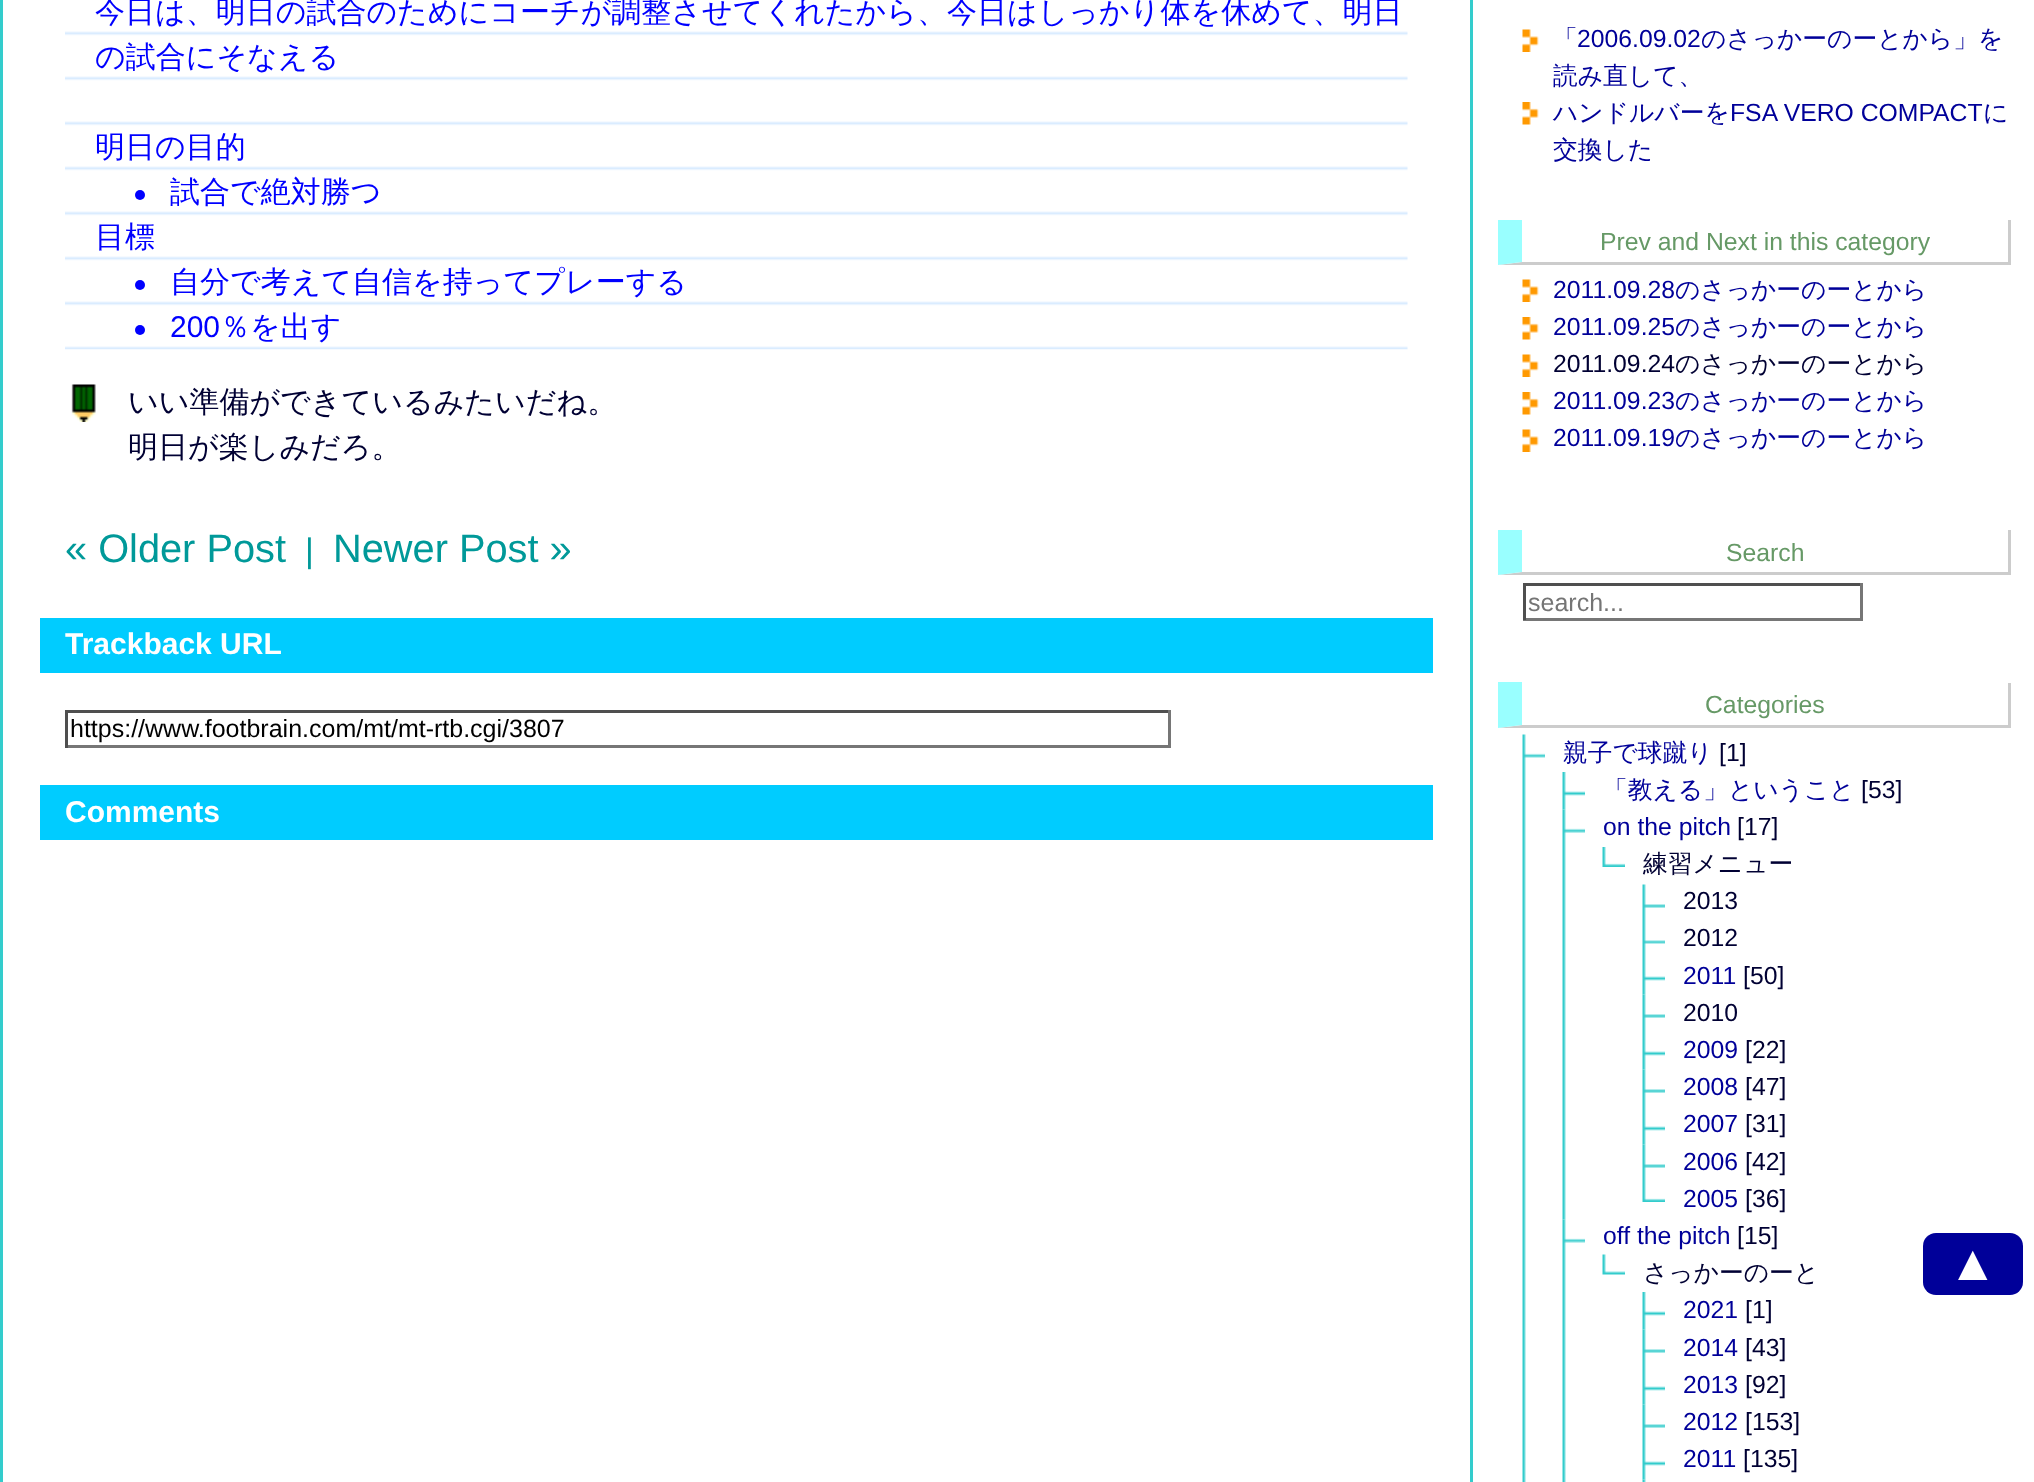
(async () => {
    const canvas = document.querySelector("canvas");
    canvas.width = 2034;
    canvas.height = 1482;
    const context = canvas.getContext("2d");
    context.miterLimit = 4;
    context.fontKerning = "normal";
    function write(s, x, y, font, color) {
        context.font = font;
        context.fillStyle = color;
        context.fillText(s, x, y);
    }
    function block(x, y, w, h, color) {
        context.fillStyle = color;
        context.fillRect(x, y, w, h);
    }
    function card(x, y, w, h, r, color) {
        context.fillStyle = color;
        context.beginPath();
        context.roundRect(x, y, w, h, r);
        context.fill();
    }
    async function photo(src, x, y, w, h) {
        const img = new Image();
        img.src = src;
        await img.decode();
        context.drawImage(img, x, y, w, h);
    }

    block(0, 0, 2034, 1482, "rgb(255, 255, 255)");
    block(1470, 0, 3, 1482, "rgb(51, 204, 204)");
    block(0, 0, 3, 1482, "rgb(51, 204, 204)");
    await photo("media/1.png", 65, 31, 1343, 319);
    write("今日は、明日の試合のためにコーチが調整させてくれたから、今日はしっかり体を休めて、明日", 95, 22, "500 30px WenQuanYi Zen Hei", "rgb(0, 0, 255)");
    write("の試合にそなえる", 95, 67, "500 30px WenQuanYi Zen Hei", "rgb(0, 0, 255)");
    write("明日の目的", 95, 157, "500 30px WenQuanYi Zen Hei", "rgb(0, 0, 255)");
    context.beginPath();
    context.arc(140, 195, 5, 0, Math.PI * 2);
    context.fill();
    write("試合で絶対勝つ", 170, 202, "500 30px WenQuanYi Zen Hei", "rgb(0, 0, 255)");
    write("目標", 95, 247, "500 30px WenQuanYi Zen Hei", "rgb(0, 0, 255)");
    context.beginPath();
    context.arc(140, 285, 5, 0, Math.PI * 2);
    context.fill();
    write("自分で考えて自信を持ってプレーする", 170, 292, "500 30px WenQuanYi Zen Hei", "rgb(0, 0, 255)");
    context.beginPath();
    context.arc(140, 330, 5, 0, Math.PI * 2);
    context.fill();
    write("200", 170, 337, "30px Liberation Sans", "rgb(0, 0, 255)");
    write("％を出す", 220, 337, "500 30px WenQuanYi Zen Hei", "rgb(0, 0, 255)");
    await photo("media/2.png", 71, 384, 25, 38);
    write("いい準備ができているみたいだね。", 128, 412, "500 30px WenQuanYi Zen Hei", "rgb(0, 0, 51)");
    write("明日が楽しみだろ。", 128, 457, "500 30px WenQuanYi Zen Hei", "rgb(0, 0, 51)");
    write("« Older Post", 65, 562, "39.75px Liberation Sans", "rgb(0, 153, 153)");
    write("|", 305, 562, "34px Liberation Sans", "rgb(0, 153, 153)");
    write("Newer Post »", 333, 562, "39.75px Liberation Sans", "rgb(0, 153, 153)");
    block(40, 618, 1393, 55, "rgb(0, 204, 255)");
    write("Trackback URL", 65, 654, "bold 30px Liberation Sans", "rgb(255, 255, 255)");
    block(65, 710, 1105, 3, "rgb(79, 79, 79)");
    block(1168, 710, 3, 38, "rgb(118, 118, 118)");
    block(65, 745, 1105, 3, "rgb(118, 118, 118)");
    block(65, 710, 3, 38, "rgb(79, 79, 79)");
    write("https://www.footbrain.com/mt/mt-rtb.cgi/3807", 70, 737, "25px Liberation Sans", "rgb(0, 0, 0)");
    block(40, 785, 1393, 55, "rgb(0, 204, 255)");
    write("Comments", 65, 822, "bold 30px Liberation Sans", "rgb(255, 255, 255)");
    await photo("media/3.png", 1522, 29, 17, 23);
    write("「", 1553, 47, "500 24.75px WenQuanYi Zen Hei", "rgb(0, 0, 153)");
    write("2006.09.02", 1577, 47, "24.75px Liberation Sans", "rgb(0, 0, 153)");
    write("のさっかーのーとから」を", 1701, 47, "500 24.75px WenQuanYi Zen Hei", "rgb(0, 0, 153)");
    write("読み直して、", 1553, 84, "500 24.75px WenQuanYi Zen Hei", "rgb(0, 0, 153)");
    await photo("media/4.png", 1522, 102, 17, 23);
    write("ハンドルバーを", 1553, 121, "500 24.75px WenQuanYi Zen Hei", "rgb(0, 0, 153)");
    write("FSA VERO COMPACT", 1730, 121, "24.75px Liberation Sans", "rgb(0, 0, 153)");
    write("に", 1983, 121, "500 24.75px WenQuanYi Zen Hei", "rgb(0, 0, 153)");
    write("交換した", 1553, 158, "500 24.75px WenQuanYi Zen Hei", "rgb(0, 0, 153)");
    block(2008, 220, 3, 45, "rgb(204, 204, 204)");
    context.beginPath();
    context.moveTo(2010, 265);
    context.lineTo(1498, 265);
    context.lineTo(1522, 262);
    context.lineTo(2008, 262);
    context.closePath();
    context.fill();
    context.fillStyle = "rgb(153, 255, 255)";
    context.beginPath();
    context.moveTo(1498, 265);
    context.lineTo(1498, 220);
    context.lineTo(1522, 220);
    context.lineTo(1522, 262);
    context.closePath();
    context.fill();
    write("Prev and Next in this category", 1600, 250, "24.75px Liberation Sans", "rgb(102, 153, 102)");
    await photo("media/3.png", 1522, 279, 17, 23);
    write("2011.09.28", 1553, 298, "24.75px Liberation Sans", "rgb(0, 0, 153)");
    write("のさっかーのーとから", 1675, 298, "500 24.75px WenQuanYi Zen Hei", "rgb(0, 0, 153)");
    await photo("media/4.png", 1522, 317, 17, 23);
    write("2011.09.25", 1553, 335, "24.75px Liberation Sans", "rgb(0, 0, 153)");
    write("のさっかーのーとから", 1675, 335, "500 24.75px WenQuanYi Zen Hei", "rgb(0, 0, 153)");
    await photo("media/3.png", 1522, 354, 17, 23);
    write("2011.09.24", 1553, 372, "24.75px Liberation Sans", "rgb(0, 0, 51)");
    write("のさっかーのーとから", 1675, 372, "500 24.75px WenQuanYi Zen Hei", "rgb(0, 0, 51)");
    await photo("media/4.png", 1522, 392, 17, 23);
    write("2011.09.23", 1553, 409, "24.75px Liberation Sans", "rgb(0, 0, 153)");
    write("のさっかーのーとから", 1675, 409, "500 24.75px WenQuanYi Zen Hei", "rgb(0, 0, 153)");
    await photo("media/3.png", 1522, 429, 17, 23);
    write("2011.09.19", 1553, 446, "24.75px Liberation Sans", "rgb(0, 0, 153)");
    write("のさっかーのーとから", 1675, 446, "500 24.75px WenQuanYi Zen Hei", "rgb(0, 0, 153)");
    block(2008, 530, 3, 45, "rgb(204, 204, 204)");
    context.beginPath();
    context.moveTo(2010, 575);
    context.lineTo(1498, 575);
    context.lineTo(1522, 572);
    context.lineTo(2008, 572);
    context.closePath();
    context.fill();
    context.fillStyle = "rgb(153, 255, 255)";
    context.beginPath();
    context.moveTo(1498, 575);
    context.lineTo(1498, 530);
    context.lineTo(1522, 530);
    context.lineTo(1522, 572);
    context.closePath();
    context.fill();
    write("Search", 1726, 561, "24.75px Liberation Sans", "rgb(102, 153, 102)");
    block(1523, 583, 340, 3, "rgb(79, 79, 79)");
    block(1860, 583, 3, 37, "rgb(118, 118, 118)");
    block(1523, 618, 340, 3, "rgb(118, 118, 118)");
    block(1523, 583, 3, 37, "rgb(79, 79, 79)");
    write("search...", 1528, 611, "25px Liberation Sans", "rgb(117, 117, 117)");
    block(2008, 683, 3, 45, "rgb(204, 204, 204)");
    context.beginPath();
    context.moveTo(2010, 728);
    context.lineTo(1498, 728);
    context.lineTo(1522, 725);
    context.lineTo(2008, 725);
    context.closePath();
    context.fill();
    context.fillStyle = "rgb(153, 255, 255)";
    context.beginPath();
    context.moveTo(1498, 728);
    context.lineTo(1498, 682);
    context.lineTo(1522, 682);
    context.lineTo(1522, 725);
    context.closePath();
    context.fill();
    write("Categories", 1705, 713, "24.75px Liberation Sans", "rgb(102, 153, 102)");
    await photo("media/5.png", 1522, 734, 23, 748);
    write("親子で球蹴り", 1563, 761, "500 24.75px WenQuanYi Zen Hei", "rgb(0, 0, 153)");
    write("[1]", 1719, 761, "24.75px Liberation Sans", "rgb(0, 0, 51)");
    await photo("media/6.png", 1562, 772, 23, 38);
    write("「教える」ということ", 1603, 798, "500 24.75px WenQuanYi Zen Hei", "rgb(0, 0, 153)");
    write("[53]", 1861, 798, "24.75px Liberation Sans", "rgb(0, 0, 51)");
    await photo("media/7.png", 1562, 809, 23, 411);
    write("on the pitch", 1603, 835, "24.75px Liberation Sans", "rgb(0, 0, 153)");
    write("[17]", 1737, 835, "24.75px Liberation Sans", "rgb(0, 0, 51)");
    await photo("media/8.png", 1602, 847, 23, 20);
    write("練習メニュー", 1643, 872, "500 24.75px WenQuanYi Zen Hei", "rgb(0, 0, 51)");
    await photo("media/9.png", 1642, 884, 23, 38);
    write("2013", 1683, 909, "24.75px Liberation Sans", "rgb(0, 0, 51)");
    await photo("media/10.png", 1642, 922, 23, 35);
    write("2012", 1683, 946, "24.75px Liberation Sans", "rgb(0, 0, 51)");
    await photo("media/6.png", 1642, 957, 23, 38);
    write("2011", 1683, 984, "24.75px Liberation Sans", "rgb(0, 0, 153)");
    write("[50]", 1743, 984, "24.75px Liberation Sans", "rgb(0, 0, 51)");
    await photo("media/11.png", 1642, 994, 23, 38);
    write("2010", 1683, 1021, "24.75px Liberation Sans", "rgb(0, 0, 51)");
    await photo("media/6.png", 1642, 1032, 23, 38);
    write("2009", 1683, 1058, "24.75px Liberation Sans", "rgb(0, 0, 153)");
    write("[22]", 1745, 1058, "24.75px Liberation Sans", "rgb(0, 0, 51)");
    await photo("media/11.png", 1642, 1069, 23, 38);
    write("2008", 1683, 1095, "24.75px Liberation Sans", "rgb(0, 0, 153)");
    write("[47]", 1745, 1095, "24.75px Liberation Sans", "rgb(0, 0, 51)");
    await photo("media/6.png", 1642, 1107, 23, 38);
    write("2007", 1683, 1132, "24.75px Liberation Sans", "rgb(0, 0, 153)");
    write("[31]", 1745, 1132, "24.75px Liberation Sans", "rgb(0, 0, 51)");
    await photo("media/11.png", 1642, 1144, 23, 38);
    write("2006", 1683, 1170, "24.75px Liberation Sans", "rgb(0, 0, 153)");
    write("[42]", 1745, 1170, "24.75px Liberation Sans", "rgb(0, 0, 51)");
    await photo("media/8.png", 1642, 1182, 23, 20);
    write("2005", 1683, 1207, "24.75px Liberation Sans", "rgb(0, 0, 153)");
    write("[36]", 1745, 1207, "24.75px Liberation Sans", "rgb(0, 0, 51)");
    await photo("media/12.png", 1562, 1219, 23, 263);
    write("off the pitch", 1603, 1244, "24.75px Liberation Sans", "rgb(0, 0, 153)");
    write("[15]", 1737, 1244, "24.75px Liberation Sans", "rgb(0, 0, 51)");
    await photo("media/13.png", 1602, 1254, 23, 21);
    write("さっかーのーと", 1643, 1281, "500 24.75px WenQuanYi Zen Hei", "rgb(0, 0, 51)");
    await photo("media/6.png", 1642, 1292, 23, 38);
    write("2021", 1683, 1318, "24.75px Liberation Sans", "rgb(0, 0, 153)");
    write("[1]", 1745, 1318, "24.75px Liberation Sans", "rgb(0, 0, 51)");
    await photo("media/11.png", 1642, 1329, 23, 38);
    write("2014", 1683, 1356, "24.75px Liberation Sans", "rgb(0, 0, 153)");
    write("[43]", 1745, 1356, "24.75px Liberation Sans", "rgb(0, 0, 51)");
    await photo("media/6.png", 1642, 1367, 23, 38);
    write("2013", 1683, 1393, "24.75px Liberation Sans", "rgb(0, 0, 153)");
    write("[92]", 1745, 1393, "24.75px Liberation Sans", "rgb(0, 0, 51)");
    await photo("media/11.png", 1642, 1404, 23, 38);
    write("2012", 1683, 1430, "24.75px Liberation Sans", "rgb(0, 0, 153)");
    write("[153]", 1745, 1430, "24.75px Liberation Sans", "rgb(0, 0, 51)");
    await photo("media/6.png", 1642, 1442, 23, 38);
    write("2011", 1683, 1467, "24.75px Liberation Sans", "rgb(0, 0, 153)");
    write("[135]", 1743, 1467, "24.75px Liberation Sans", "rgb(0, 0, 51)");
    await photo("media/14.png", 1642, 1479, 4, 3);
    card(1923, 1233, 100, 62, 13, "rgb(0, 0, 153)");
    write("▲", 1948, 1280, "50px Liberation Sans", "rgb(255, 255, 255)");
})();
